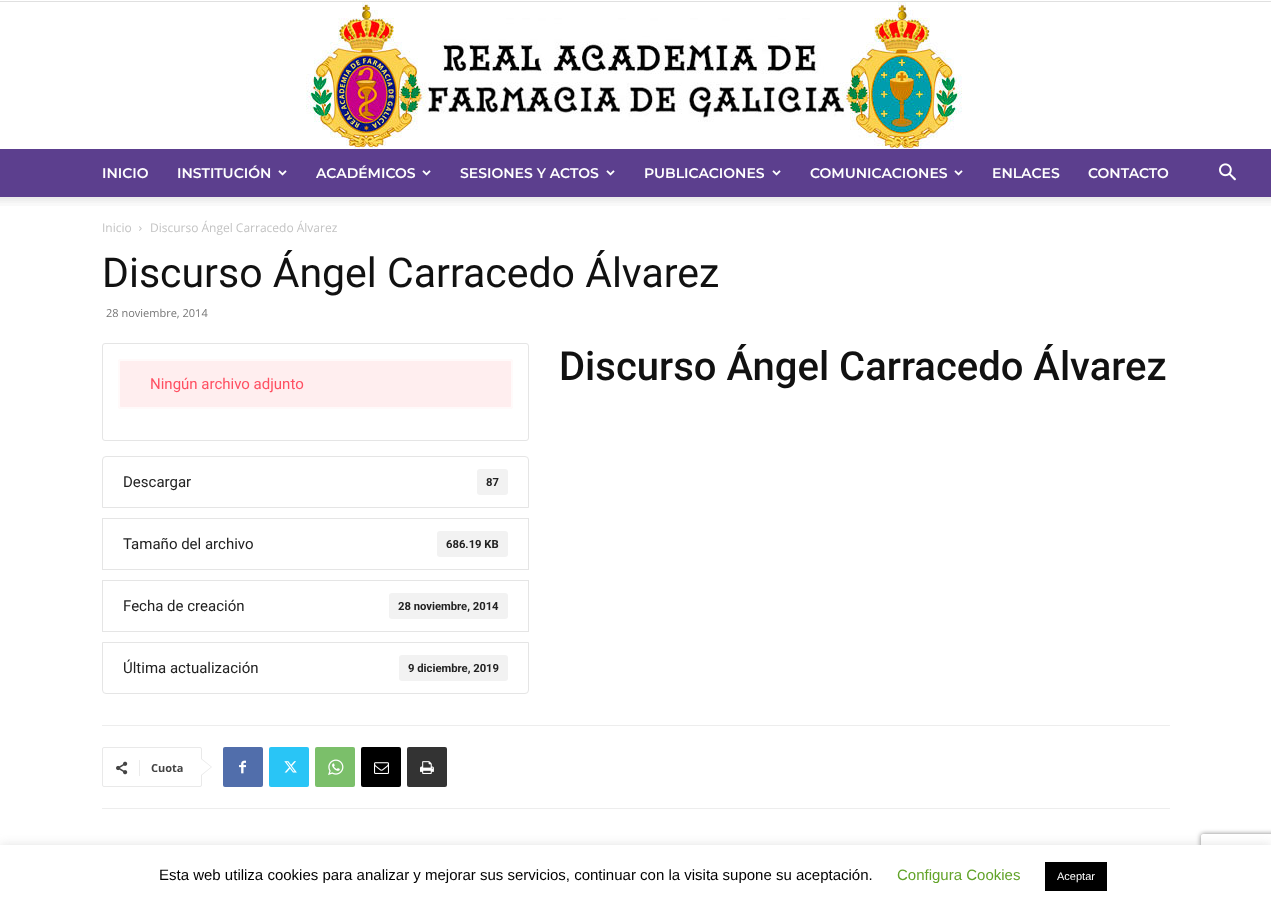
(async () => {
    const canvas = document.querySelector("canvas");
    canvas.width = 1271;
    canvas.height = 908;
    const context = canvas.getContext("2d");
    context.miterLimit = 4;
    context.fontKerning = "normal";
    function write(s, x, y, font, color) {
        context.font = font;
        context.fillStyle = color;
        context.fillText(s, x, y);
    }
    function block(x, y, w, h, color) {
        context.fillStyle = color;
        context.fillRect(x, y, w, h);
    }
    function card(x, y, w, h, r, color) {
        context.fillStyle = color;
        context.beginPath();
        context.roundRect(x, y, w, h, r);
        context.fill();
    }
    async function photo(src, x, y, w, h) {
        const img = new Image();
        img.src = src;
        await img.decode();
        context.drawImage(img, x, y, w, h);
    }

    block(0, 0, 1271, 908, "rgb(255, 255, 255)");
    block(0, 1, 1271, 1, "rgb(224, 224, 224)");
    await photo("media/1.png", 306, 2, 656, 147);
    block(0, 149, 1271, 48, "rgb(92, 63, 142)");
    write("INICIO", 102, 178, "600 14px Montserrat", "rgb(255, 255, 255)");
    write("INSTITUCIÓN", 177, 178, "600 14px Montserrat", "rgb(255, 255, 255)");
    await photo("media/2.png", 278, 170, 9, 6);
    write("ACADÉMICOS", 316, 178, "600 14px Montserrat", "rgb(255, 255, 255)");
    await photo("media/2.png", 422, 170, 9, 6);
    write("SESIONES Y ACTOS", 460, 178, "600 14px Montserrat", "rgb(255, 255, 255)");
    await photo("media/2.png", 606, 170, 9, 6);
    write("PUBLICACIONES", 644, 178, "600 14px Montserrat", "rgb(255, 255, 255)");
    await photo("media/2.png", 772, 170, 9, 6);
    write("COMUNICACIONES", 810, 178, "600 14px Montserrat", "rgb(255, 255, 255)");
    await photo("media/2.png", 954, 170, 9, 6);
    write("ENLACES", 992, 178, "600 14px Montserrat", "rgb(255, 255, 255)");
    write("CONTACTO", 1088, 178, "600 14px Montserrat", "rgb(255, 255, 255)");
    await photo("media/3.png", 1219, 163, 17, 18);
    await photo("media/4.png", 0, 197, 1271, 9);
    write("Inicio", 102, 232, "12px Open Sans", "rgb(195, 195, 195)");
    await photo("media/5.png", 139, 226, 3, 5);
    write("Discurso Ángel Carracedo Álvarez", 150, 232, "12px Open Sans", "rgb(195, 195, 195)");
    write("Discurso Ángel Carracedo Álvarez", 102, 287, "41px Roboto", "rgb(17, 17, 17)");
    write("28 noviembre, 2014", 106, 317, "11px Open Sans", "rgb(118, 118, 118)");
    write("Discurso Ángel Carracedo Álvarez", 559, 380, "500 40px Roboto", "rgb(17, 17, 17)");
    context.beginPath();
    context.roundRect(102.5, 343.5, 426, 97, 2.5);
    context.strokeStyle = "rgb(229, 229, 229)";
    context.stroke();
    card(118, 359, 395, 50, 3, "rgb(255, 238, 239)");
    context.beginPath();
    context.roundRect(119, 360, 393, 48, 2);
    context.strokeStyle = "rgba(255, 255, 255, 0.7)";
    context.lineWidth = 2;
    context.stroke();
    write("Ningún archivo adjunto", 150, 389, "15px Roboto", "rgb(255, 80, 98)");
    context.beginPath();
    context.roundRect(102.5, 456.5, 426, 51, [3.5, 3.5, 0, 0]);
    context.strokeStyle = "rgb(229, 229, 229)";
    context.lineWidth = 1;
    context.stroke();
    write("Descargar", 123, 487, "15px Roboto", "rgb(34, 34, 34)");
    card(477, 469, 31, 26, 3, "rgb(242, 242, 242)");
    write("87", 486, 486, "bold 11.25px Roboto", "rgb(34, 34, 34)");
    context.strokeRect(102.5, 518.5, 426, 51);
    write("Tamaño del archivo", 123, 549, "15px Roboto", "rgb(34, 34, 34)");
    card(437, 531, 71, 26, 3, "rgb(242, 242, 242)");
    write("686.19 KB", 446, 548, "bold 11.25px Roboto", "rgb(34, 34, 34)");
    context.strokeRect(102.5, 580.5, 426, 51);
    write("Fecha de creación", 123, 611, "15px Roboto", "rgb(34, 34, 34)");
    card(389, 593, 119, 26, 3, "rgb(242, 242, 242)");
    write("28 noviembre, 2014", 398, 610, "bold 11.25px Roboto", "rgb(34, 34, 34)");
    context.beginPath();
    context.roundRect(102.5, 642.5, 426, 51, [0, 0, 3.5, 3.5]);
    context.stroke();
    write("Última actualización", 123, 673, "15px Roboto", "rgb(34, 34, 34)");
    card(399, 655, 109, 26, 3, "rgb(242, 242, 242)");
    write("9 diciembre, 2019", 408, 672, "bold 11.25px Roboto", "rgb(34, 34, 34)");
    block(102, 725, 1068, 1, "rgb(237, 237, 237)");
    block(102, 808, 1068, 1, "rgb(237, 237, 237)");
    context.beginPath();
    context.roundRect(102.5, 747.5, 99, 39, 1.5);
    context.strokeStyle = "rgb(233, 233, 233)";
    context.stroke();
    context.fillStyle = "rgb(233, 233, 233)";
    context.beginPath();
    context.moveTo(201, 776);
    context.lineTo(201, 758);
    context.lineTo(212, 767);
    context.closePath();
    context.fill();
    await photo("media/6.png", 116, 761, 12, 14);
    block(139, 760, 1, 16, "rgb(235, 235, 235)");
    write("Cuota", 151, 772, "bold 11px Open Sans", "rgb(68, 68, 68)");
    context.fillStyle = "rgb(255, 255, 255)";
    context.beginPath();
    context.moveTo(201, 775);
    context.lineTo(201, 759);
    context.lineTo(211, 767);
    context.closePath();
    context.fill();
    card(223, 747, 40, 40, 2, "rgb(81, 110, 171)");
    await photo("media/7.png", 239, 760, 7, 14);
    card(269, 747, 40, 40, 2, "rgb(41, 197, 246)");
    await photo("media/8.png", 284, 761, 13, 12);
    card(315, 747, 40, 40, 2, "rgb(123, 191, 106)");
    await photo("media/9.png", 328, 759, 16, 16);
    card(361, 747, 40, 40, 2, "rgb(0, 0, 0)");
    await photo("media/10.png", 374, 762, 15, 12);
    card(407, 747, 40, 40, 2, "rgb(51, 51, 51)");
    await photo("media/11.png", 420, 761, 14, 13);
    context.fillStyle = "rgba(172, 171, 171, 0.3)";
    context.filter = "blur(5px)";
    context.beginPath();
    context.rect(0, 844, 1271, 63);
    context.fill();
    context.filter = "none";
    context.save();
    context.beginPath();
    context.moveTo(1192, 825);
    context.lineTo(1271, 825);
    context.lineTo(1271, 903);
    context.lineTo(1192, 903);
    context.closePath();
    context.moveTo(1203, 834);
    context.lineTo(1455, 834);
    context.bezierCurveTo(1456, 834, 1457, 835, 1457, 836);
    context.lineTo(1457, 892);
    context.bezierCurveTo(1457, 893, 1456, 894, 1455, 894);
    context.lineTo(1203, 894);
    context.bezierCurveTo(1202, 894, 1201, 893, 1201, 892);
    context.lineTo(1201, 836);
    context.bezierCurveTo(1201, 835, 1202, 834, 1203, 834);
    context.closePath();
    context.clip("evenodd");
    context.fillStyle = "rgb(128, 128, 128)";
    context.filter = "blur(2.5px)";
    context.beginPath();
    context.roundRect(1201, 834, 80, 60, 2);
    context.fill();
    context.filter = "none";
    context.restore();
    block(0, 845, 1271, 63, "rgb(255, 255, 255)");
    write("Esta web utiliza cookies para analizar y mejorar sus servicios, continuar con la visita supone su aceptación.", 159, 880, "15px Liberation Sans", "rgb(0, 0, 0)");
    write("Configura Cookies", 897, 880, "15px Liberation Sans", "rgb(98, 163, 41)");
    block(1045, 862, 62, 29, "rgb(0, 0, 0)");
    write("Aceptar", 1057, 880, "11px Liberation Sans", "rgb(255, 255, 255)");
})();
